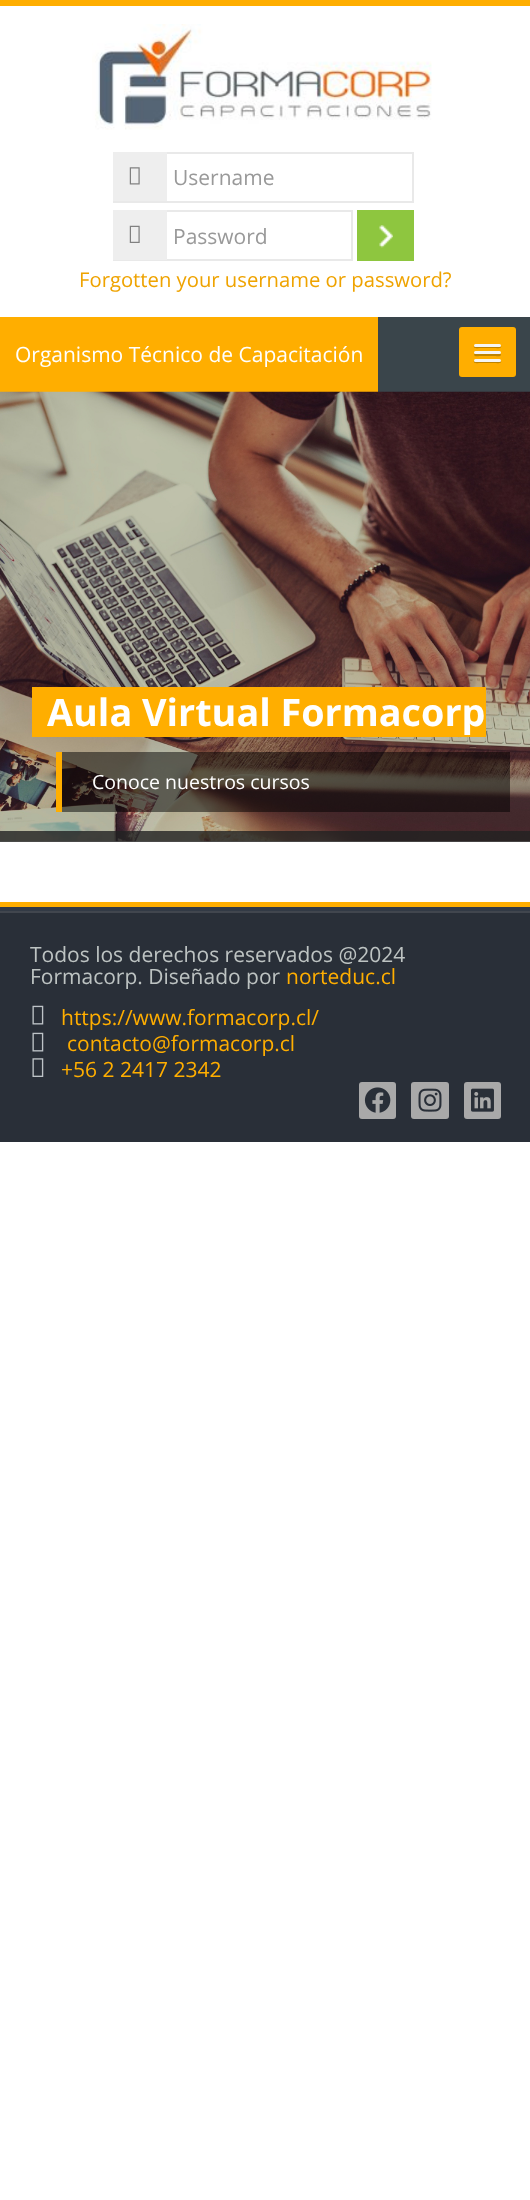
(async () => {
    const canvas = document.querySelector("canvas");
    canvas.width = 530;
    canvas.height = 2200;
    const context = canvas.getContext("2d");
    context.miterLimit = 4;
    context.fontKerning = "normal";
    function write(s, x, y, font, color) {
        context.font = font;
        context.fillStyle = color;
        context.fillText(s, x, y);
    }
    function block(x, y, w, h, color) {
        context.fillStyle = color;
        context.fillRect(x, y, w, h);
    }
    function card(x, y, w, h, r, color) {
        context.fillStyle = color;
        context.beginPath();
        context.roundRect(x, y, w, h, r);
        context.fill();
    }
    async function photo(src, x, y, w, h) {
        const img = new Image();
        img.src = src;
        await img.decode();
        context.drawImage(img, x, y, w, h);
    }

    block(0, 0, 530, 2200, "rgb(255, 255, 255)");
    block(0, 0, 530, 6, "rgb(255, 174, 0)");
    await photo("media/1.png", 92, 24, 340, 106);
    context.strokeStyle = "rgb(233, 233, 233)";
    context.lineWidth = 2;
    context.strokeRect(114, 153, 299, 49);
    block(113, 152, 54, 49, "rgb(238, 238, 238)");
    await photo("media/2.png", 129, 167, 11, 18);
    write("Username", 173, 185, "21px Open Sans", "rgb(153, 153, 153)");
    context.strokeRect(114, 211, 238, 49);
    block(113, 210, 54, 50, "rgb(238, 238, 238)");
    await photo("media/3.png", 129, 225, 11, 18);
    write("Password", 173, 244, "21px Open Sans", "rgb(153, 153, 153)");
    block(357, 210, 57, 51, "rgb(142, 198, 63)");
    await photo("media/4.png", 379, 225, 14, 23);
    write("Forgotten your username or password?", 79, 287, "20.25px Open Sans", "rgb(239, 163, 0)");
    block(378, 317, 152, 75, "rgb(58, 69, 75)");
    block(0, 317, 378, 75, "rgb(255, 174, 0)");
    write("Organismo Técnico de Capacitación", 15, 362, "21px Open Sans", "rgb(255, 255, 255)");
    card(459, 327, 57, 50, 3, "rgb(255, 174, 0)");
    context.fillStyle = "rgb(191, 131, 0)";
    context.beginPath();
    context.moveTo(474, 346);
    context.bezierCurveTo(472.5, 349, 479.5, 348, 479.5, 348);
    context.lineTo(495.5, 348);
    context.bezierCurveTo(495.5, 348, 502.5, 349, 501, 346);
    context.bezierCurveTo(500.5, 346, 500, 346.5, 499.5, 346.5);
    context.lineTo(475.5, 346.5);
    context.bezierCurveTo(475, 346.5, 474.5, 346, 474, 346);
    context.closePath();
    context.fill();
    card(474, 344, 27, 3, 1.5, "rgb(245, 245, 245)");
    context.fillStyle = "rgb(191, 131, 0)";
    context.beginPath();
    context.moveTo(474.5, 353.5);
    context.lineTo(474, 355);
    context.bezierCurveTo(474.5, 357, 479, 356, 479.5, 356);
    context.lineTo(495.5, 356);
    context.bezierCurveTo(496, 356, 500.5, 357, 501, 355);
    context.lineTo(500.5, 353.5);
    context.lineTo(499.5, 354);
    context.lineTo(475.5, 354);
    context.closePath();
    context.fill();
    card(474, 351, 27, 3, 1.5, "rgb(245, 245, 245)");
    context.fillStyle = "rgb(191, 131, 0)";
    context.beginPath();
    context.moveTo(474, 361);
    context.bezierCurveTo(472.5, 364, 479.5, 363, 479.5, 363);
    context.lineTo(495.5, 363);
    context.bezierCurveTo(495.5, 363, 502.5, 364, 501, 361);
    context.bezierCurveTo(500.5, 361, 500, 361.5, 499.5, 361.5);
    context.lineTo(475.5, 361.5);
    context.bezierCurveTo(475, 361.5, 474.5, 361, 474, 361);
    context.closePath();
    context.fill();
    card(474, 359, 27, 3, 1.5, "rgb(245, 245, 245)");
    await photo("media/5.png", 0, 391, 530, 451);
    block(32, 687, 454, 50, "rgb(255, 174, 0)");
    write("Aula Virtual Formacorp", 47, 726, "bold 37.75px Open Sans", "rgb(255, 255, 255)");
    block(62, 752, 448, 60, "rgba(0, 0, 0, 0.5)");
    block(56, 752, 6, 60, "rgb(255, 174, 0)");
    write("Conoce nuestros cursos", 92, 789, "19.5px Open Sans", "rgb(255, 255, 255)");
    block(0, 831, 530, 11, "rgba(34, 34, 34, 0.8)");
    block(0, 907, 530, 4, "rgb(50, 58, 69)");
    block(0, 902, 530, 5, "rgb(255, 174, 0)");
    block(0, 913, 530, 229, "rgb(41, 47, 56)");
    block(0, 911, 530, 2, "rgb(65, 70, 78)");
    write("Todos los derechos reservados @2024", 30, 962, "21px Open Sans", "rgb(189, 195, 194)");
    write("Formacorp. Diseñado por", 30, 984, "21px Open Sans", "rgb(189, 195, 194)");
    write("norteduc.cl", 286, 984, "21px Open Sans", "rgb(255, 174, 0)");
    await photo("media/6.png", 32, 1005, 12, 20);
    write("https://www.formacorp.cl/", 61, 1025, "21px Open Sans", "rgb(255, 174, 0)");
    await photo("media/6.png", 32, 1032, 12, 20);
    write("contacto@formacorp.cl", 67, 1051, "21px Open Sans", "rgb(255, 174, 0)");
    await photo("media/7.png", 32, 1058, 12, 19);
    write("+56 2 2417 2342", 61, 1077, "21px Open Sans", "rgb(255, 174, 0)");
    card(359, 1082, 37, 37, 3, "rgb(169, 169, 169)");
    await photo("media/8.png", 364, 1087, 27, 26);
    card(411, 1082, 38, 37, 3, "rgb(169, 169, 169)");
    await photo("media/9.png", 418, 1088, 24, 24);
    card(464, 1082, 37, 37, 3, "rgb(169, 169, 169)");
    await photo("media/10.png", 471, 1088, 23, 24);
})();
